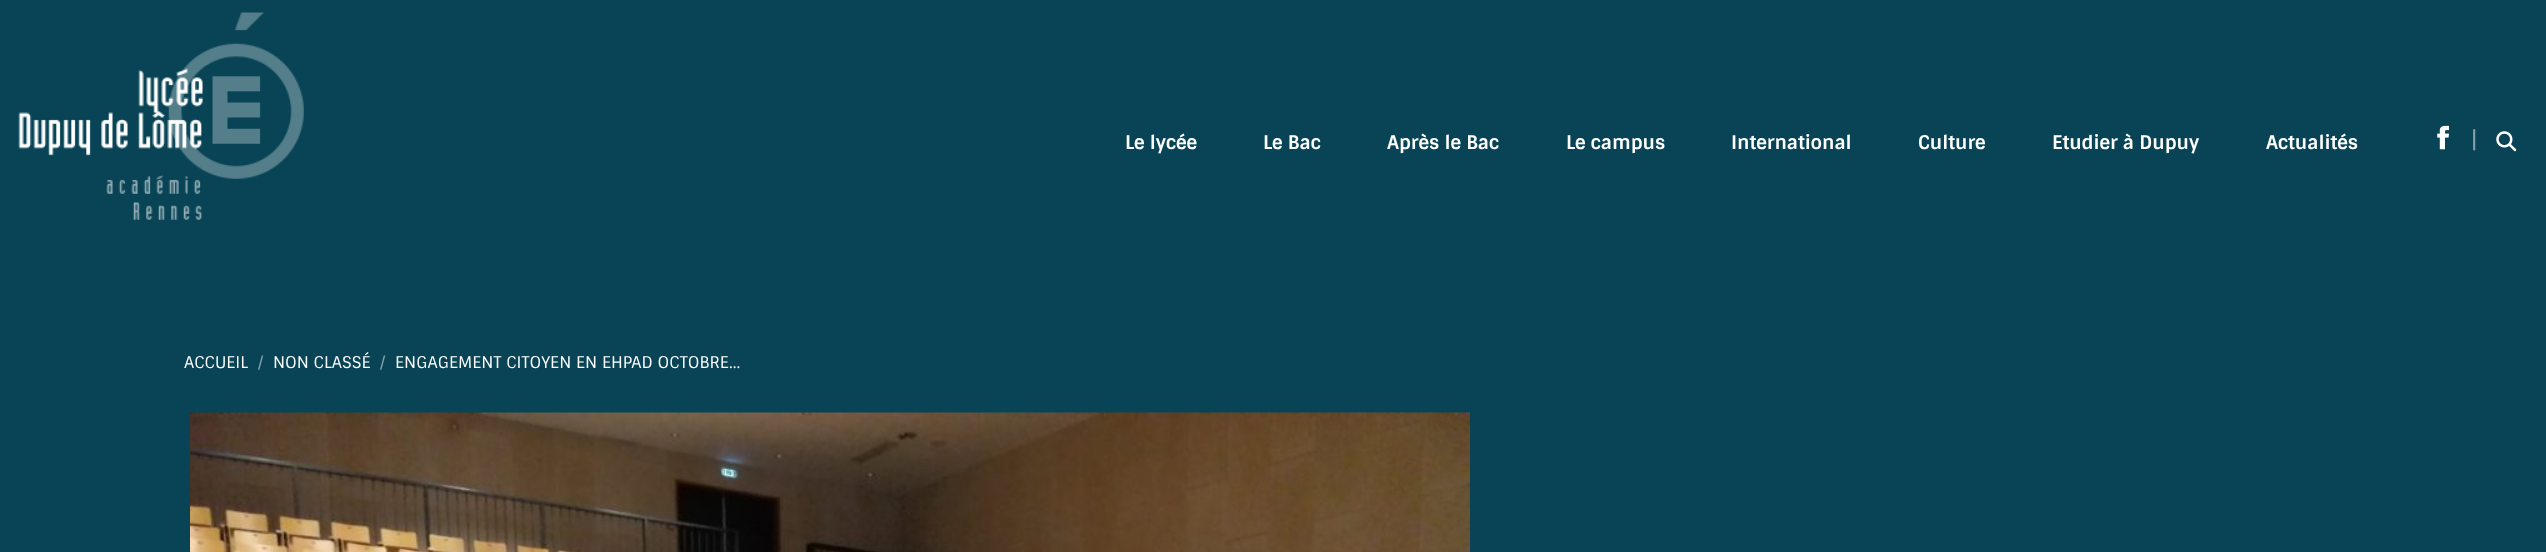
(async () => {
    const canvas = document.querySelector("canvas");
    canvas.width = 2546;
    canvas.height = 552;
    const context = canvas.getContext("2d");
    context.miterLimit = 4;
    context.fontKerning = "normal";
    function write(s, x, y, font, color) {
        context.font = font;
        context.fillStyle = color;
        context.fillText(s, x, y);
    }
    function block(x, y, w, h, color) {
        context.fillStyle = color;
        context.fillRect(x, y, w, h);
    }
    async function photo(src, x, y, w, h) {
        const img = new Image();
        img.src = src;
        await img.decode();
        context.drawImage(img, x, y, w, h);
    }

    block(0, 0, 2546, 552, "rgb(8, 68, 86)");
    await photo("media/1.png", 18, 12, 286, 208);
    write("Le lycée", 1125, 149, "bold 18.75px Sintony", "rgb(255, 255, 255)");
    write("Le Bac", 1263, 149, "bold 18.75px Sintony", "rgb(255, 255, 255)");
    write("Après le Bac", 1387, 149, "bold 18.75px Sintony", "rgb(255, 255, 255)");
    write("Le campus", 1566, 149, "bold 18.75px Sintony", "rgb(255, 255, 255)");
    write("International", 1731, 149, "bold 18.75px Sintony", "rgb(255, 255, 255)");
    write("Culture", 1918, 149, "bold 18.75px Sintony", "rgb(255, 255, 255)");
    write("Etudier à Dupuy", 2052, 149, "bold 18.75px Sintony", "rgb(255, 255, 255)");
    write("Actualités", 2266, 149, "bold 18.75px Sintony", "rgb(255, 255, 255)");
    await photo("media/2.png", 2437, 125, 12, 25);
    write("|", 2471, 147, "bold 25px Roboto", "rgb(132, 162, 171)");
    await photo("media/3.png", 2496, 131, 21, 21);
    write("ACCUEIL", 184, 368, "16.25px Sintony", "rgb(255, 255, 255)");
    write("/", 258, 368, "16.25px Sintony", "rgb(132, 162, 171)");
    write("NON CLASSÉ", 273, 368, "16.25px Sintony", "rgb(255, 255, 255)");
    write("/", 380, 368, "16.25px Sintony", "rgb(132, 162, 171)");
    write("ENGAGEMENT CITOYEN EN EHPAD OCTOBRE…", 395, 368, "16.25px Sintony", "rgb(255, 255, 255)");
    await photo("media/4.png", 190, 412, 1280, 140);
})();
